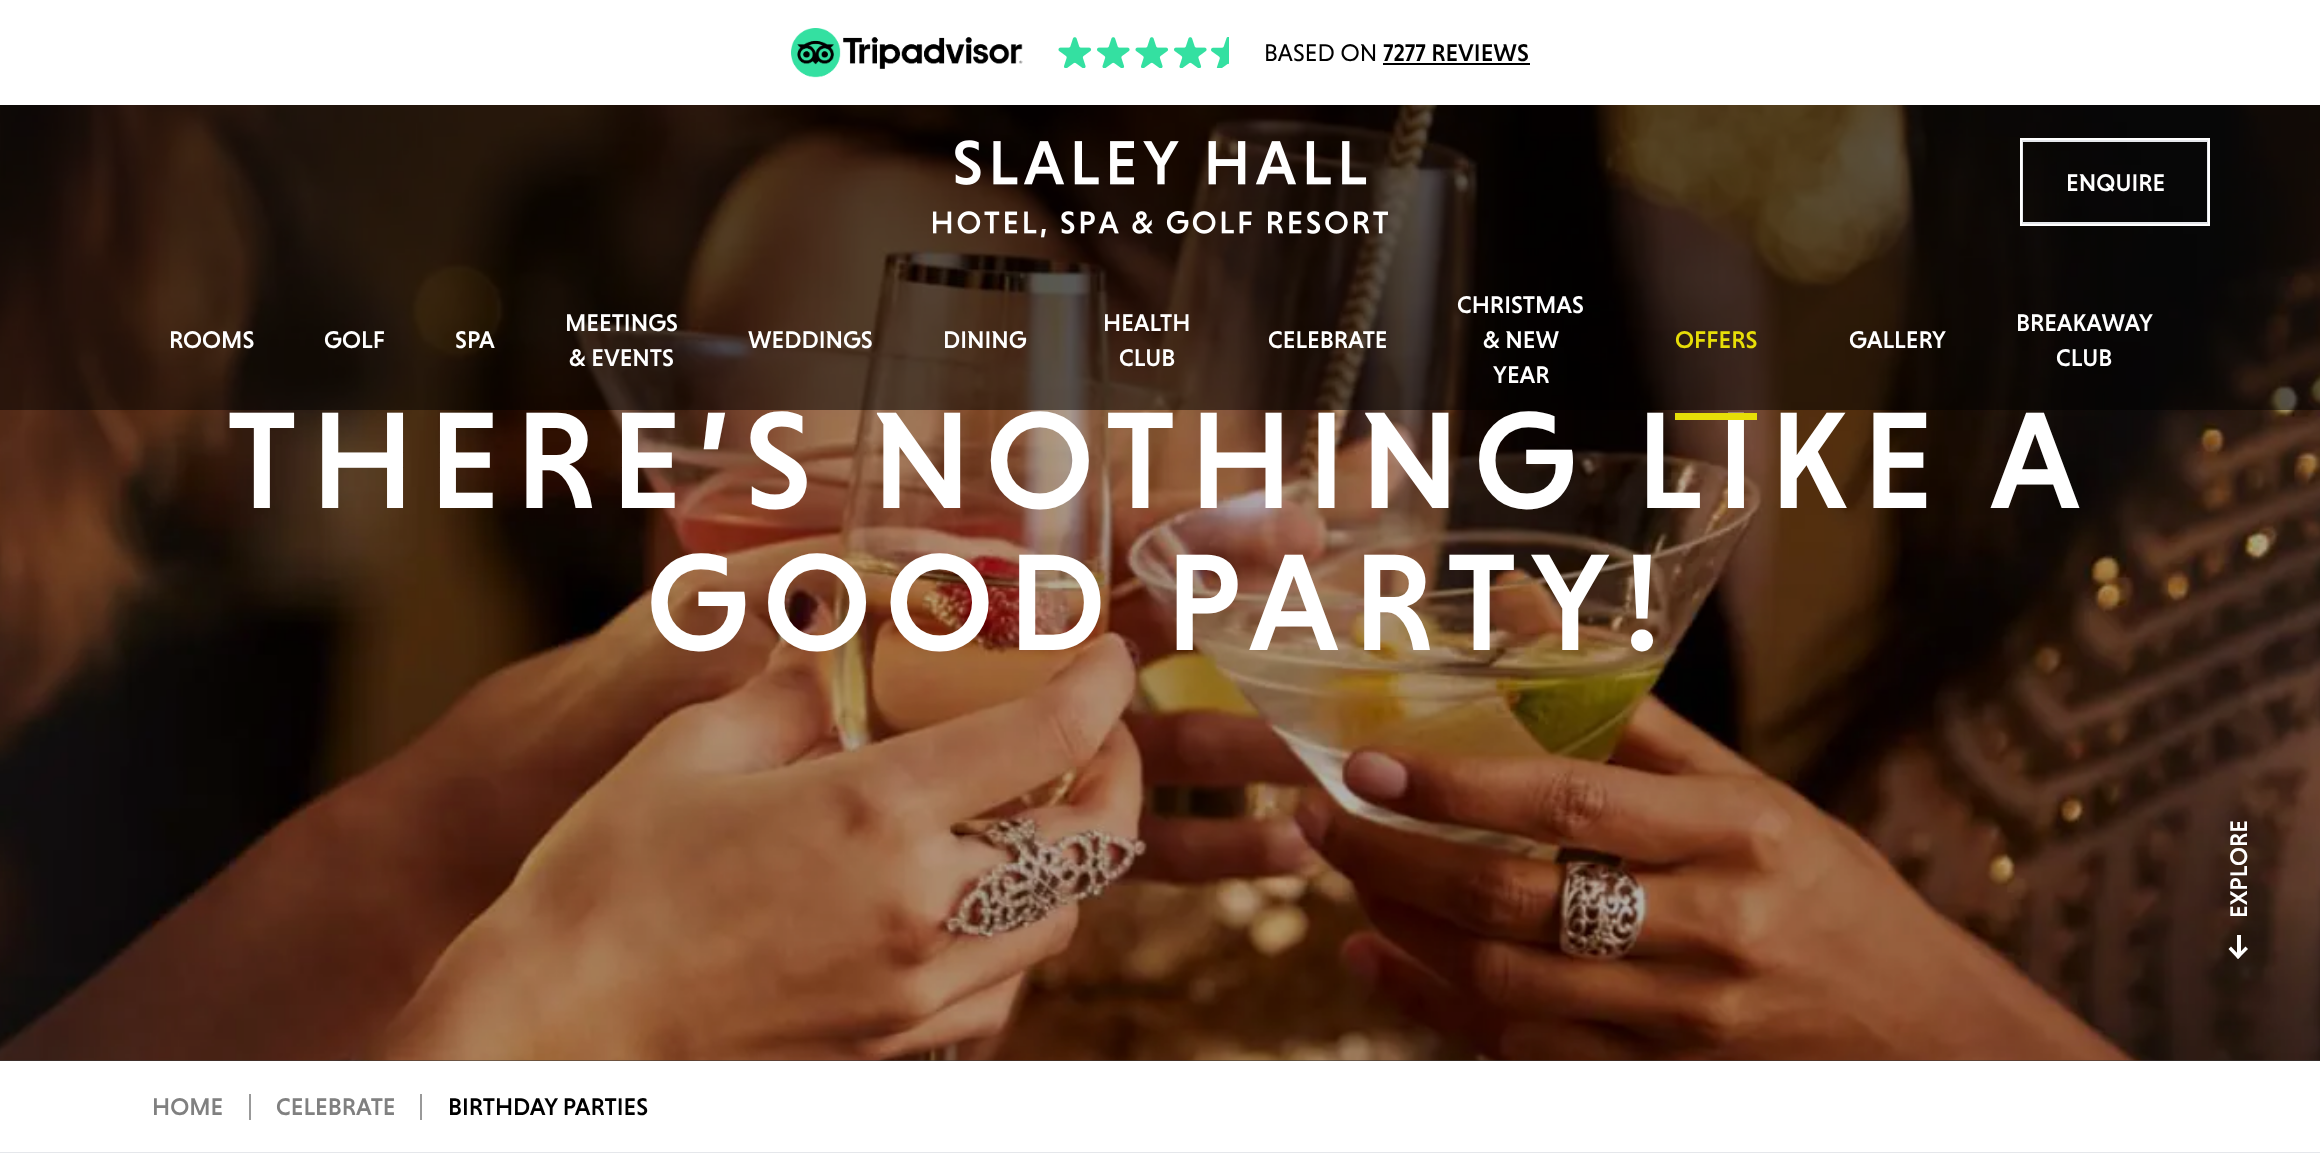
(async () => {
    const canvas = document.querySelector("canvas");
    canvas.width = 2320;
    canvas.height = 1171;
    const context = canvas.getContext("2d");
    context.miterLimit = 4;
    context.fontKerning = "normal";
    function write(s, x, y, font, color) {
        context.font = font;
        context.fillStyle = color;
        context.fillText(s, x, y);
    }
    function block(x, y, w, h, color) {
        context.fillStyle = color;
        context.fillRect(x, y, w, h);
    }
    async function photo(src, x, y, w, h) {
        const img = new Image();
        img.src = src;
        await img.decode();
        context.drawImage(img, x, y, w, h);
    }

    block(0, 0, 2320, 1171, "rgb(60, 60, 62)");
    await photo("media/6.png", 0, 105, 2320, 956);
    block(0, 105, 2320, 305, "rgba(0, 0, 0, 0.5)");
    block(0, 0, 2320, 105, "rgb(255, 255, 255)");
    await photo("media/1.png", 791, 28, 232, 50);
    await photo("media/2.png", 1058, 37, 34, 31);
    await photo("media/3.png", 1097, 37, 33, 31);
    await photo("media/2.png", 1135, 37, 34, 31);
    await photo("media/3.png", 1174, 37, 33, 31);
    await photo("media/4.png", 1211, 37, 18, 31);
    write("BASED ON", 1264, 61, "24.5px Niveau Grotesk", "rgb(0, 0, 0)");
    write("7277 REVIEWS", 1383, 61, "500 24.5px Niveau Grotesk", "rgb(0, 0, 0)");
    block(1383, 63, 147, 2, "rgb(0, 0, 0)");
    await photo("media/5.png", 933, 140, 455, 98);
    context.strokeStyle = "rgb(229, 231, 235)";
    context.lineWidth = 2;
    context.strokeRect(2022, 141, 186, 82);
    context.strokeStyle = "rgb(255, 255, 255)";
    context.strokeRect(2021, 139, 188, 86);
    write("ENQUIRE", 2066, 191, "500 24.5px Niveau Grotesk", "rgb(255, 255, 255)");
    write("ROOMS", 169, 348, "500 24.5px Niveau Grotesk", "rgb(255, 255, 255)");
    write("GOLF", 324, 348, "500 24.5px Niveau Grotesk", "rgb(255, 255, 255)");
    write("SPA", 455, 348, "500 24.5px Niveau Grotesk", "rgb(255, 255, 255)");
    write("MEETINGS", 565, 331, "500 24.5px Niveau Grotesk", "rgb(255, 255, 255)");
    write("& EVENTS", 569, 366, "500 24.5px Niveau Grotesk", "rgb(255, 255, 255)");
    write("WEDDINGS", 748, 348, "500 24.5px Niveau Grotesk", "rgb(255, 255, 255)");
    write("DINING", 943, 348, "500 24.5px Niveau Grotesk", "rgb(255, 255, 255)");
    write("HEALTH", 1103, 331, "500 24.5px Niveau Grotesk", "rgb(255, 255, 255)");
    write("CLUB", 1119, 366, "500 24.5px Niveau Grotesk", "rgb(255, 255, 255)");
    write("CELEBRATE", 1268, 348, "500 24.5px Niveau Grotesk", "rgb(255, 255, 255)");
    write("CHRISTMAS", 1457, 313, "500 24.5px Niveau Grotesk", "rgb(255, 255, 255)");
    write("& NEW", 1483, 348, "500 24.5px Niveau Grotesk", "rgb(255, 255, 255)");
    write("YEAR", 1493, 383, "500 24.5px Niveau Grotesk", "rgb(255, 255, 255)");
    write("OFFERS", 1675, 348, "500 24.5px Niveau Grotesk", "rgb(231, 222, 8)");
    context.letterSpacing = "14px";
    write("THERE’S NOTHING LIKE A", 227, 508, "500 140px Niveau Grotesk", "rgb(255, 255, 255)");
    block(1675, 413, 82, 7, "rgb(231, 222, 8)");
    context.letterSpacing = "0px";
    write("GALLERY", 1849, 348, "500 24.5px Niveau Grotesk", "rgb(255, 255, 255)");
    write("BREAKAWAY", 2016, 331, "500 24.5px Niveau Grotesk", "rgb(255, 255, 255)");
    write("CLUB", 2056, 366, "500 24.5px Niveau Grotesk", "rgb(255, 255, 255)");
    context.letterSpacing = "14px";
    write("GOOD PARTY!", 646, 650, "500 140px Niveau Grotesk", "rgb(255, 255, 255)");
    context.letterSpacing = "0px";
    context.font = "500 24.5px Niveau Grotesk";
    context.save();
    context.translate(2247, 918);
    context.rotate(-90 * Math.PI / 180);
    context.fillText("EXPLORE", 0, 0);
    context.restore();
    block(2237, 935, 4, 21, "rgb(255, 255, 255)");
    context.beginPath();
    context.moveTo(2236, 956.5);
    context.lineTo(2245.5, 946.5);
    context.lineTo(2248, 949);
    context.lineTo(2238, 959);
    context.closePath();
    context.fill();
    context.beginPath();
    context.moveTo(2228.5, 949);
    context.lineTo(2231, 946.5);
    context.lineTo(2240.5, 956.5);
    context.lineTo(2238, 959);
    context.closePath();
    context.fill();
    block(0, 1061, 2320, 91, "rgb(255, 255, 255)");
    block(0, 1152, 2320, 1, "rgb(229, 231, 235)");
    write("HOME", 152, 1115, "500 24.5px Niveau Grotesk", "rgb(128, 128, 128)");
    block(249, 1094, 2, 26, "rgb(153, 153, 153)");
    write("CELEBRATE", 276, 1115, "500 24.5px Niveau Grotesk", "rgb(128, 128, 128)");
    block(420, 1094, 2, 26, "rgb(153, 153, 153)");
    write("BIRTHDAY PARTIES", 448, 1115, "500 24.5px Niveau Grotesk", "rgb(0, 0, 0)");
    block(0, 1153, 2320, 18, "rgb(255, 255, 255)");
})();
